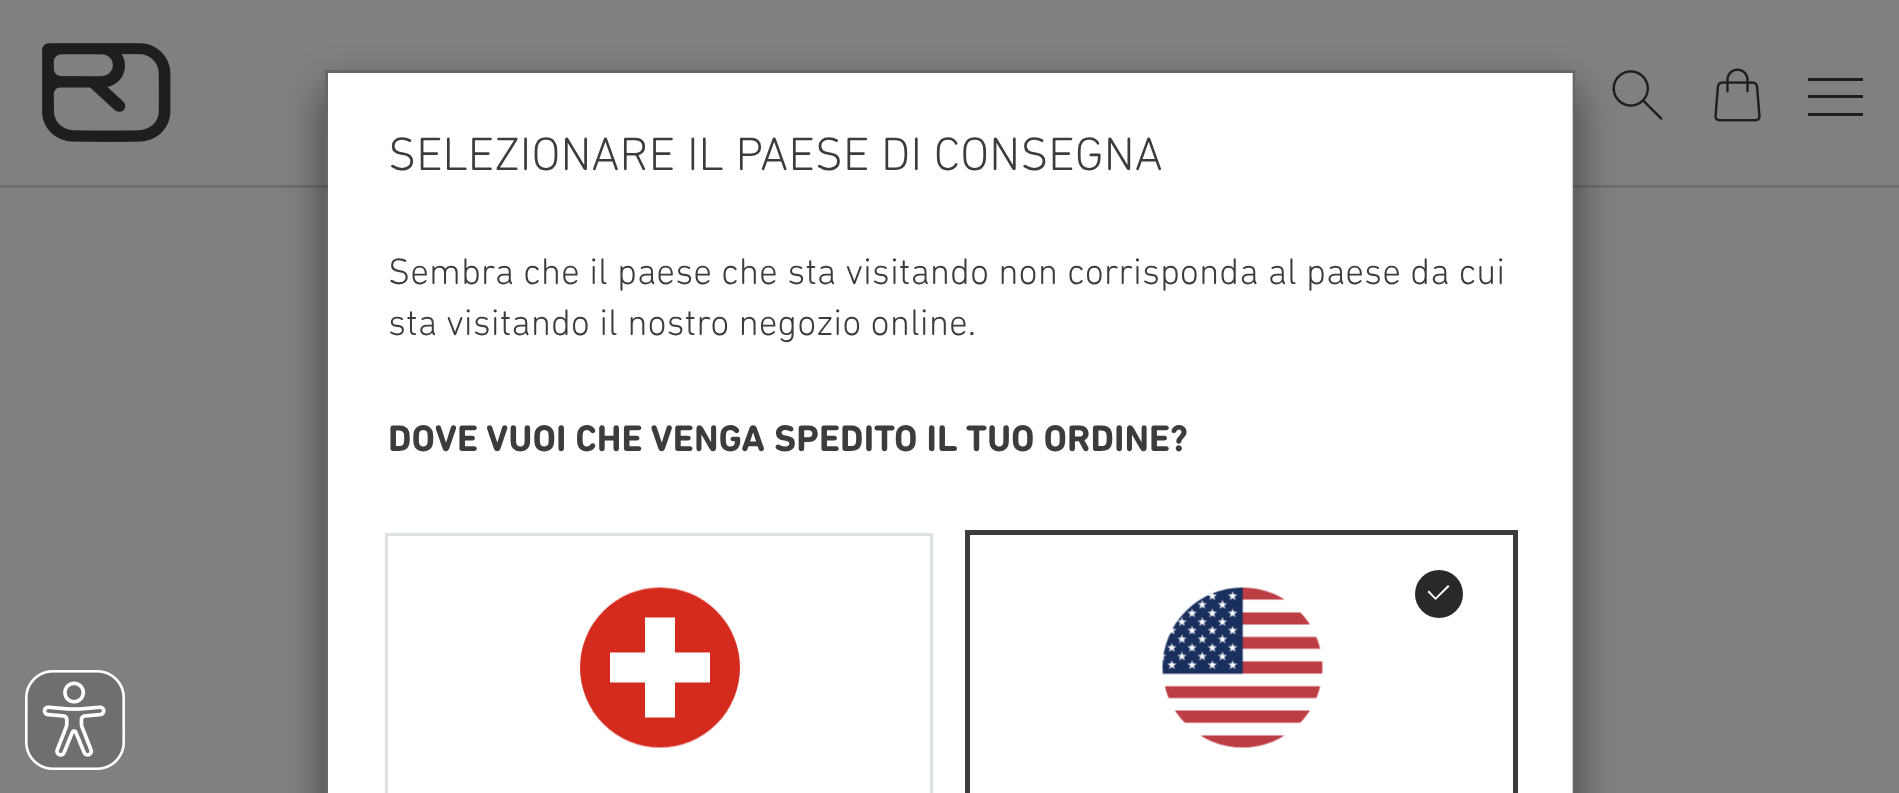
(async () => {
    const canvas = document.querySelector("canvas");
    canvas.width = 1899;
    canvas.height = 793;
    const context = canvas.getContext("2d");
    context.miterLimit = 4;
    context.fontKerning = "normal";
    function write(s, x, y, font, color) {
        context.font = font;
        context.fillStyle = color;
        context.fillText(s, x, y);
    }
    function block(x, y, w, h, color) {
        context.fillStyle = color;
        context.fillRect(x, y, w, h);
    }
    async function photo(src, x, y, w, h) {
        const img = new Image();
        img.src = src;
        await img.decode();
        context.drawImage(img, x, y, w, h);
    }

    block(0, 0, 1899, 793, "rgb(128, 128, 128)");
    block(0, 185, 1899, 3, "rgb(111, 111, 111)");
    await photo("media/1.png", 42, 43, 129, 99);
    await photo("media/2.png", 1612, 70, 51, 50);
    await photo("media/3.png", 1714, 68, 47, 54);
    block(1808, 78, 55, 3, "rgb(30, 30, 30)");
    block(1808, 95, 55, 3, "rgb(30, 30, 30)");
    block(1808, 113, 55, 3, "rgb(30, 30, 30)");
    context.save();
    context.beginPath();
    context.moveTo(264, 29);
    context.lineTo(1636, 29);
    context.lineTo(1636, 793);
    context.lineTo(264, 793);
    context.closePath();
    context.moveTo(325, 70);
    context.lineTo(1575, 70);
    context.lineTo(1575, 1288);
    context.lineTo(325, 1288);
    context.closePath();
    context.clip("evenodd");
    context.fillStyle = "rgba(0, 0, 0, 0.5)";
    context.filter = "blur(20px)";
    context.beginPath();
    context.rect(325, 90, 1250, 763);
    context.fill();
    context.filter = "none";
    context.restore();
    block(328, 73, 1245, 720, "rgb(255, 255, 255)");
    context.strokeStyle = "rgba(0, 0, 0, 0.2)";
    context.lineWidth = 3;
    context.strokeRect(326.5, 71.5, 1247, 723);
    write("SELEZIONARE IL PAESE DI CONSEGNA", 388, 170, "300 47.5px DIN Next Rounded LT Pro", "rgb(60, 60, 59)");
    write("Sembra che il paese che sta visitando non corrisponda al paese da cui", 388, 284, "300 37.5px DIN Next Rounded LT Pro", "rgb(60, 60, 59)");
    write("sta visitando il nostro negozio online.", 388, 335, "300 37.5px DIN Next Rounded LT Pro", "rgb(60, 60, 59)");
    write("DOVE VUOI CHE VENGA SPEDITO IL TUO ORDINE?", 388, 451, "bold 37.5px DIN Next Rounded LT Pro", "rgb(60, 60, 59)");
    context.strokeStyle = "rgb(222, 226, 230)";
    context.strokeRect(386.5, 534.5, 545, 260);
    await photo("media/4.png", 580, 587, 160, 161);
    context.strokeStyle = "rgb(60, 60, 59)";
    context.lineWidth = 5;
    context.strokeRect(967.5, 532.5, 548, 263);
    await photo("media/5.png", 1162, 587, 161, 161);
    context.fillStyle = "rgb(41, 41, 40)";
    context.beginPath();
    context.arc(1439, 594, 24, 0, Math.PI * 2);
    context.fill();
    context.fillStyle = "rgb(255, 255, 255)";
    context.beginPath();
    context.moveTo(1435.5, 597.5);
    context.lineTo(1448, 585);
    context.lineTo(1449.5, 586.5);
    context.lineTo(1435.5, 600);
    context.lineTo(1427.5, 592);
    context.lineTo(1429, 590.5);
    context.closePath();
    context.fill();
    await photo("media/6.png", 25, 670, 100, 100);
})();
